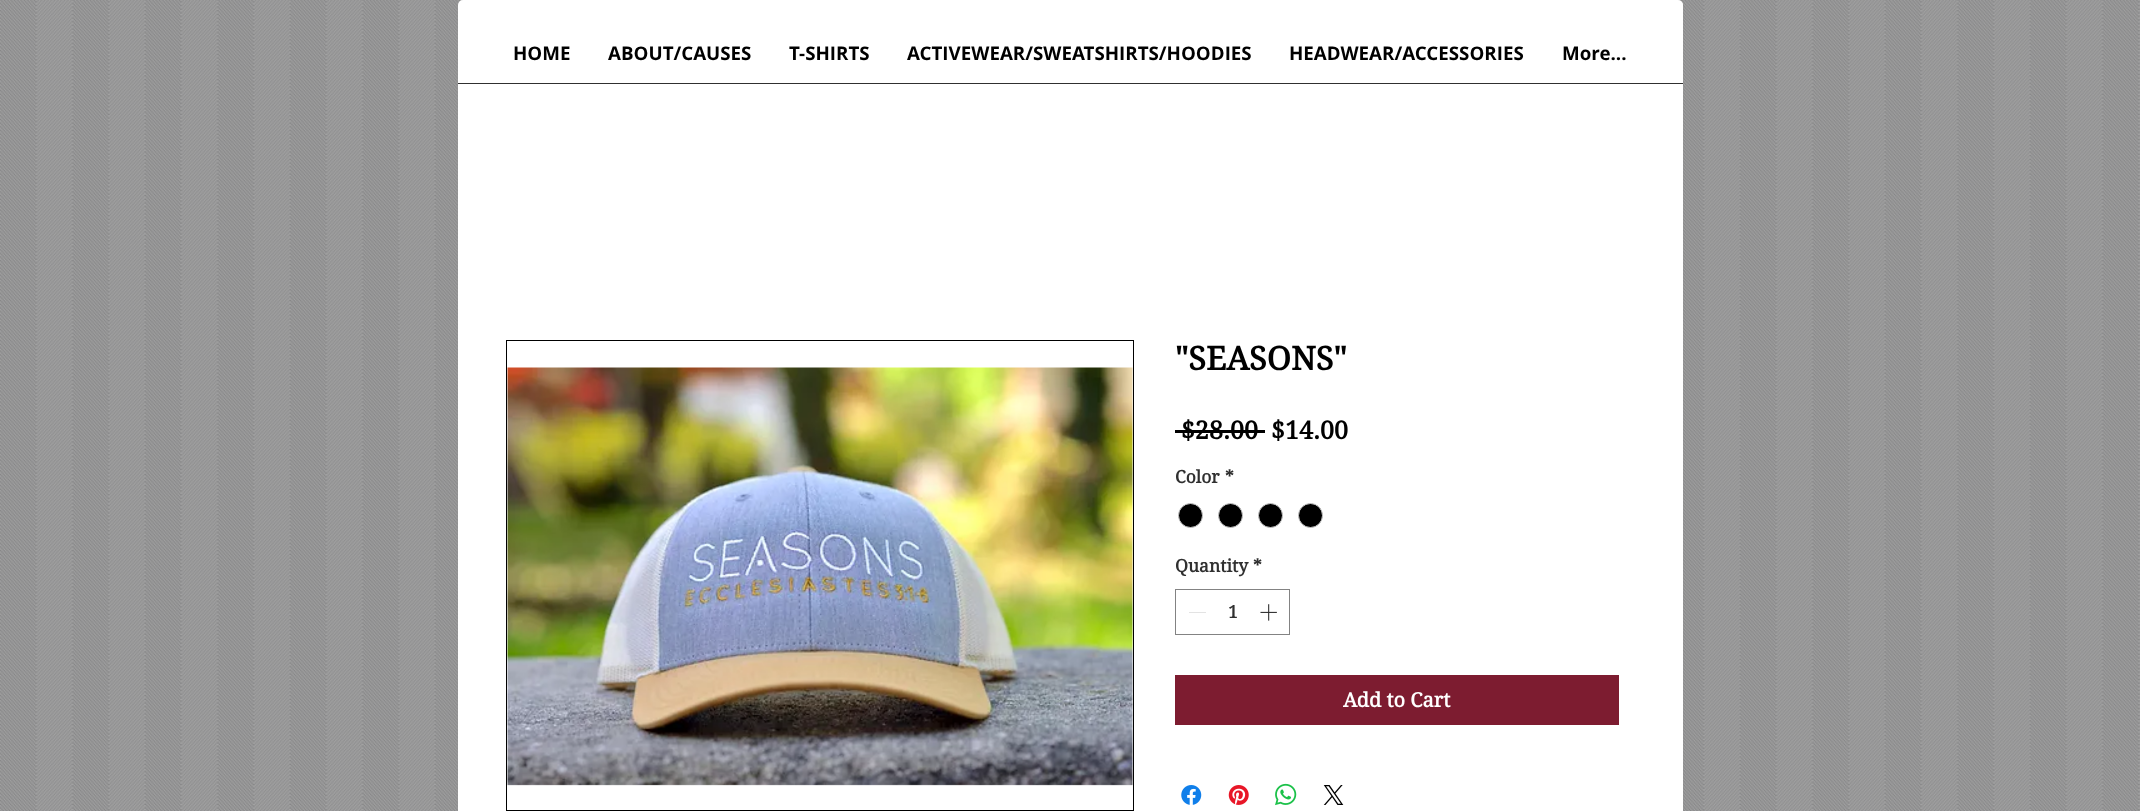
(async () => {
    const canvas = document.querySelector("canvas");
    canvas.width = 2140;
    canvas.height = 811;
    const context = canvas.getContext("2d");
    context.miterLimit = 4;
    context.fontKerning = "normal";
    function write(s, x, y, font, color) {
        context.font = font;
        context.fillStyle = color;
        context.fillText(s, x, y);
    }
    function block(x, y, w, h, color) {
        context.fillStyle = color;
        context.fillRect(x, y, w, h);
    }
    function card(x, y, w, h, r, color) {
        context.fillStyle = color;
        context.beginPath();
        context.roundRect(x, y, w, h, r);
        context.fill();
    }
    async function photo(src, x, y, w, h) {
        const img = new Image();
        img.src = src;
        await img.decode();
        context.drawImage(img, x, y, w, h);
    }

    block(0, 0, 2140, 811, "rgb(167, 167, 167)");
    await photo("media/1.png", 0, 0, 2140, 811);
    card(458, 0, 1225, 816, 5, "rgb(255, 255, 255)");
    context.fillStyle = "rgba(255, 255, 255, 0.75)";
    context.beginPath();
    context.moveTo(458, 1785);
    context.lineTo(458, 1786);
    context.bezierCurveTo(458, 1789, 460, 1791, 463, 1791);
    context.lineTo(1678, 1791);
    context.bezierCurveTo(1681, 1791, 1683, 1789, 1683, 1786);
    context.lineTo(1683, 5);
    context.bezierCurveTo(1683, 4, 1682, 2, 1681, 1);
    context.lineTo(1682, 4);
    context.lineTo(1682, 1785);
    context.bezierCurveTo(1682, 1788, 1680, 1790, 1678, 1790);
    context.lineTo(462, 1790);
    context.bezierCurveTo(460, 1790, 458, 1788, 458, 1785);
    context.closePath();
    context.fill();
    write("HOME", 513, 60, "bold 18.75px Open Sans", "rgb(0, 0, 0)");
    write("ABOUT/CAUSES", 608, 60, "bold 18.75px Open Sans", "rgb(0, 0, 0)");
    write("T-SHIRTS", 789, 60, "bold 18.75px Open Sans", "rgb(0, 0, 0)");
    write("ACTIVEWEAR/SWEATSHIRTS/HOODIES", 907, 60, "bold 18.75px Open Sans", "rgb(0, 0, 0)");
    write("HEADWEAR/ACCESSORIES", 1289, 60, "bold 18.75px Open Sans", "rgb(0, 0, 0)");
    write("More...", 1562, 60, "bold 18.75px Open Sans", "rgb(0, 0, 0)");
    block(458, 83, 1225, 1, "rgb(48, 48, 48)");
    context.strokeStyle = "rgb(0, 0, 0)";
    context.strokeRect(506.5, 340.5, 627, 470);
    await photo("media/2.png", 507, 367, 626, 419);
    write("\"SEASONS\"", 1175, 370, "bold 32.5px 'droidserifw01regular'", "rgb(0, 0, 0)");
    write("$28.00", 1181, 439, "bold 25px 'droidserifw01regular'", "rgb(0, 0, 0)");
    block(1175, 430, 90, 3, "rgb(0, 0, 0)");
    write("$14.00", 1271, 439, "bold 25px 'droidserifw01regular'", "rgb(0, 0, 0)");
    write("Color", 1175, 483, "bold 17.5px 'droidserifw01regular'", "rgb(48, 48, 48)");
    write("*", 1225, 483, "bold 17.5px 'droidserifw01regular'", "rgb(48, 48, 48)");
    context.fillStyle = "rgb(0, 0, 0)";
    context.beginPath();
    context.arc(1190.5, 515.5, 12, 0, Math.PI * 2);
    context.fill();
    context.strokeStyle = "rgb(201, 201, 201)";
    context.stroke();
    context.beginPath();
    context.arc(1230.5, 515.5, 12, 0, Math.PI * 2);
    context.fill();
    context.stroke();
    context.beginPath();
    context.arc(1270.5, 515.5, 12, 0, Math.PI * 2);
    context.fill();
    context.stroke();
    context.beginPath();
    context.arc(1310.5, 515.5, 12, 0, Math.PI * 2);
    context.fill();
    context.stroke();
    write("Quantity", 1175, 572, "bold 17.5px 'droidserifw01regular'", "rgb(48, 48, 48)");
    write("*", 1253, 572, "bold 17.5px 'droidserifw01regular'", "rgb(48, 48, 48)");
    context.strokeStyle = "rgb(131, 131, 131)";
    context.strokeRect(1175.5, 589.5, 114, 45);
    block(1189, 612, 17, 1, "rgb(227, 227, 227)");
    write("1", 1228, 618, "bold 17.5px 'droidserifw01regular'", "rgb(48, 48, 48)");
    await photo("media/3.png", 1260, 604, 17, 17);
    block(1175, 675, 444, 50, "rgb(125, 28, 48)");
    write("Add to Cart", 1343, 707, "bold 20px 'droidserifw01regular'", "rgb(255, 255, 255)");
    await photo("media/4.png", 1181, 785, 21, 20);
    await photo("media/5.png", 1228, 785, 21, 20);
    await photo("media/6.png", 1275, 783, 22, 23);
    await photo("media/7.png", 1323, 785, 21, 20);
})();
